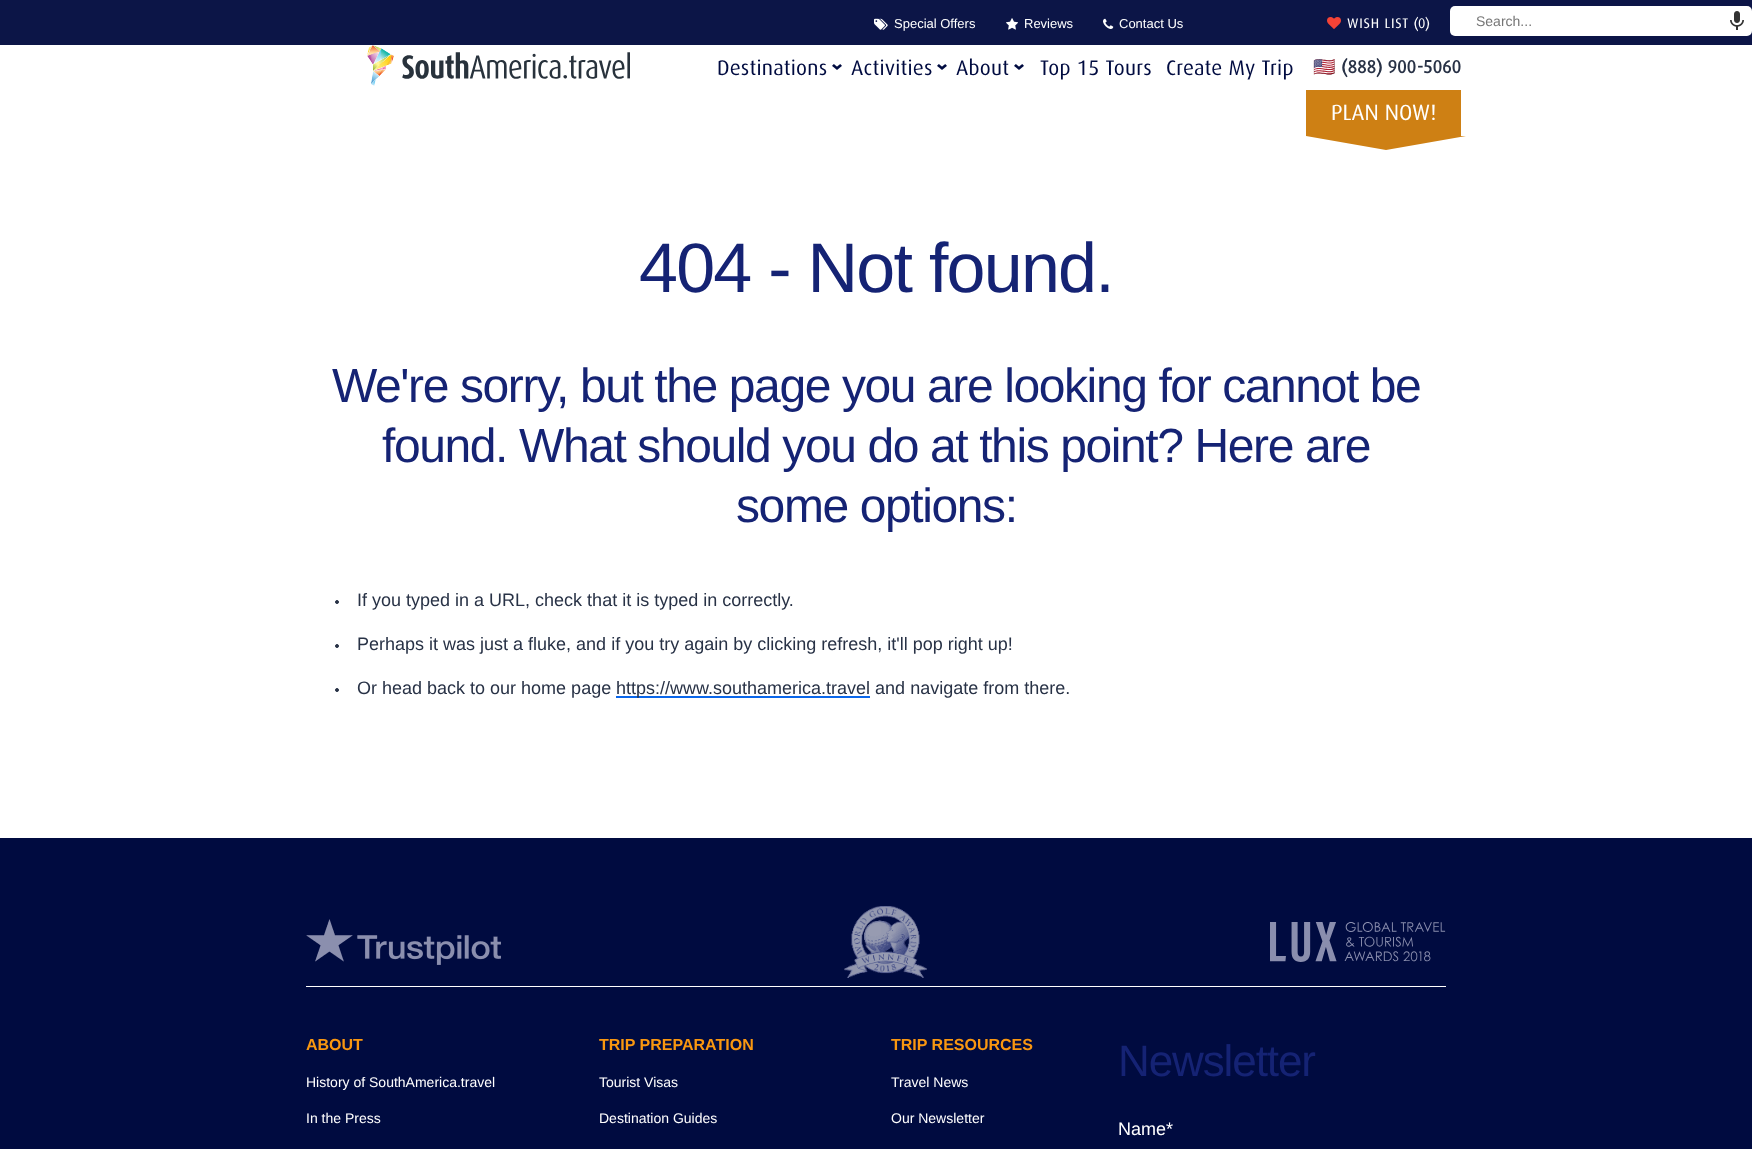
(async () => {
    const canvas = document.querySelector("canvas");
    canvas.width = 1752;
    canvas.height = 1149;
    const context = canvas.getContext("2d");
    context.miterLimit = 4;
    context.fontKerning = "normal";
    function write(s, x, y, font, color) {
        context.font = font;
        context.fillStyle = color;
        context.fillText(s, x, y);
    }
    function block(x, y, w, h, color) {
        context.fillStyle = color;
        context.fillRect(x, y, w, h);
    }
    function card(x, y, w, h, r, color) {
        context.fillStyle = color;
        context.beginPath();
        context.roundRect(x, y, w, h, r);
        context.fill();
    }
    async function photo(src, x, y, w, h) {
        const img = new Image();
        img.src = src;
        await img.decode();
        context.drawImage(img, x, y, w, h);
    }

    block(0, 0, 1752, 1149, "rgb(255, 255, 255)");
    block(0, 0, 1752, 45, "rgb(12, 21, 71)");
    await photo("media/1.png", 874, 18, 14, 12);
    write("Special Offers", 894, 28, "13px Liberation Sans", "rgb(255, 255, 255)");
    await photo("media/2.png", 1006, 18, 12, 12);
    write("Reviews", 1024, 28, "13px Liberation Sans", "rgb(255, 255, 255)");
    await photo("media/3.png", 1103, 18, 11, 11);
    write("Contact Us", 1119, 28, "13px Liberation Sans", "rgb(255, 255, 255)");
    await photo("media/4.png", 1327, 17, 14, 12);
    context.letterSpacing = "0.75px";
    write("WISH LIST (", 1347, 28, "14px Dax", "rgb(255, 255, 255)");
    write("0", 1418, 28, "14px Dax", "rgb(255, 255, 255)");
    write(")", 1425, 28, "14px Dax", "rgb(255, 255, 255)");
    card(1450, 6, 302, 30, 5, "rgb(255, 255, 255)");
    context.letterSpacing = "0px";
    write("Search...", 1476, 26, "14px Liberation Sans", "rgb(117, 117, 117)");
    await photo("media/5.png", 1730, 11, 14, 19);
    await photo("media/6.png", 367, 45, 263, 41);
    context.letterSpacing = "0.25px";
    write("Destinations", 717, 75, "21px Dax", "rgb(0, 11, 64)");
    await photo("media/7.png", 832, 64, 10, 6);
    write("Activities", 851, 75, "21px Dax", "rgb(0, 11, 64)");
    await photo("media/7.png", 937, 64, 10, 6);
    write("About", 956, 75, "21px Dax", "rgb(0, 11, 64)");
    await photo("media/7.png", 1014, 64, 10, 6);
    write("Top 15 Tours", 1040, 75, "21px Dax", "rgb(0, 11, 64)");
    write("Create My Trip", 1166, 75, "21px Dax", "rgb(0, 11, 64)");
    context.letterSpacing = "0px";
    write("🇺🇸", 1313, 73, "bold 18px Noto Color Emoji", "rgb(40, 50, 70)");
    write("(888) 900-5060", 1341, 73, "bold 18px Dax", "rgb(40, 50, 70)");
    block(1306, 90, 155, 46, "rgb(206, 128, 20)");
    write("PLAN NOW!", 1331, 120, "22px Dax", "rgb(255, 255, 255)");
    context.fillStyle = "rgb(206, 128, 20)";
    context.beginPath();
    context.moveTo(1306, 136);
    context.lineTo(1466, 136);
    context.lineTo(1386, 150);
    context.closePath();
    context.fill();
    context.letterSpacing = "-1.75px";
    write("404 - Not found.", 639, 292, "70px Liberation Sans", "rgb(21, 35, 116)");
    context.letterSpacing = "-1.4px";
    write("We're sorry, but the page you are looking for cannot be", 332, 402, "48px Liberation Sans", "rgb(21, 35, 116)");
    write("found. What should you do at this point? Here are", 382, 462, "48px Liberation Sans", "rgb(21, 35, 116)");
    write("some options:", 736, 522, "48px Liberation Sans", "rgb(21, 35, 116)");
    context.fillStyle = "rgb(40, 50, 70)";
    context.beginPath();
    context.arc(337, 602, 1.5, 0, Math.PI * 2);
    context.fill();
    context.strokeStyle = "rgb(40, 50, 70)";
    context.stroke();
    context.letterSpacing = "0px";
    write("If you typed in a URL, check that it is typed in correctly.", 357, 606, "18px Liberation Sans", "rgb(40, 50, 70)");
    context.beginPath();
    context.arc(337, 646, 1.5, 0, Math.PI * 2);
    context.fill();
    context.stroke();
    write("Perhaps it was just a fluke, and if you try again by clicking refresh, it'll pop right up!", 357, 650, "18px Liberation Sans", "rgb(40, 50, 70)");
    context.beginPath();
    context.arc(337, 690, 1.5, 0, Math.PI * 2);
    context.fill();
    context.stroke();
    write("Or head back to our home page", 357, 694, "18px Liberation Sans", "rgb(40, 50, 70)");
    block(616, 696, 254, 2, "rgb(10, 102, 234)");
    write("https://www.southamerica.travel and navigate from there.", 616, 694, "18px Liberation Sans", "rgb(40, 50, 70)");
    block(0, 838, 1752, 311, "rgb(0, 11, 64)");
    block(306, 986, 1140, 1, "rgb(255, 255, 255)");
    await photo("media/8.png", 306, 919, 195, 46);
    await photo("media/9.png", 844, 906, 83, 72);
    await photo("media/10.png", 1270, 922, 176, 40);
    write("ABOUT", 306, 1050, "bold 16px Liberation Sans", "rgb(249, 151, 16)");
    write("History of SouthAmerica.travel", 306, 1087, "14px Liberation Sans", "rgb(255, 255, 255)");
    write("In the Press", 306, 1123, "14px Liberation Sans", "rgb(255, 255, 255)");
    write("TRIP PREPARATION", 599, 1050, "bold 16px Liberation Sans", "rgb(249, 151, 16)");
    write("Tourist Visas", 599, 1087, "14px Liberation Sans", "rgb(255, 255, 255)");
    write("Destination Guides", 599, 1123, "14px Liberation Sans", "rgb(255, 255, 255)");
    write("TRIP RESOURCES", 891, 1050, "bold 16px Liberation Sans", "rgb(249, 151, 16)");
    write("Travel News", 891, 1087, "14px Liberation Sans", "rgb(255, 255, 255)");
    write("Our Newsletter", 891, 1123, "14px Liberation Sans", "rgb(255, 255, 255)");
    context.letterSpacing = "-1.1px";
    write("Newsletter", 1118, 1076, "44px Liberation Sans", "rgb(21, 35, 116)");
    context.letterSpacing = "0px";
    write("Name*", 1118, 1135, "18px Liberation Sans", "rgb(255, 255, 255)");
})();
